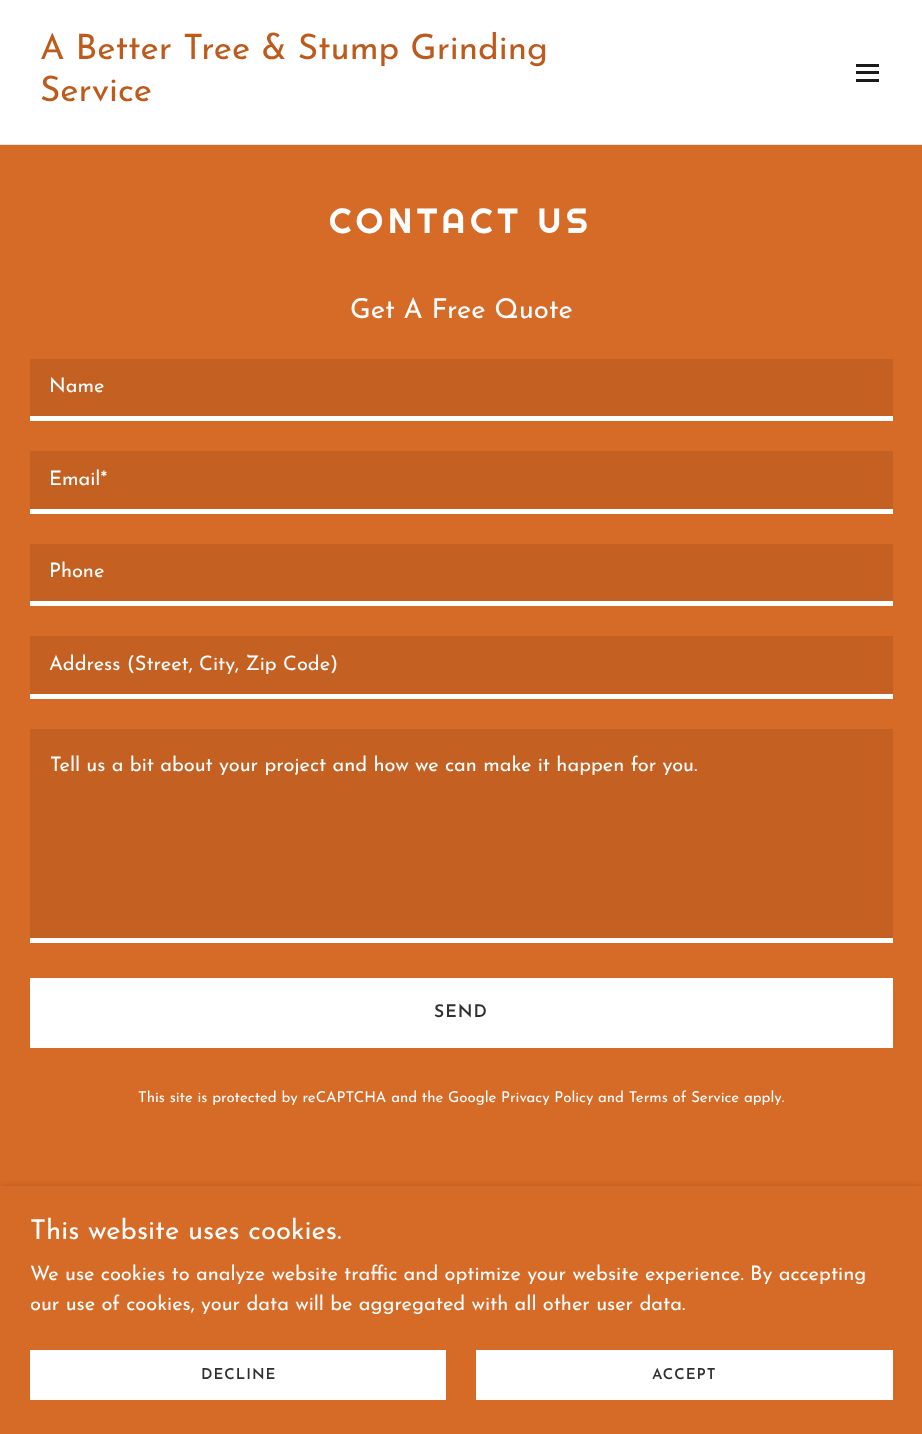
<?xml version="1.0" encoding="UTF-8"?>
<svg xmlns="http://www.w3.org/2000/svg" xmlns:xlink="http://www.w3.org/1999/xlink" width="922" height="1434">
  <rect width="100%" height="100%" fill="#d66a27" />
  <rect width="922" height="144" fill="#ffffff" />
  <rect x="856" y="64" width="23" height="3" fill="#1b1b1b" />
  <rect x="856" y="71" width="23" height="3" fill="#1b1b1b" />
  <rect x="856" y="79" width="23" height="3" fill="#1b1b1b" />
  <rect y="144" width="922" height="1" fill="#e2e2e2" />
  <rect x="30" y="359" width="863" height="57" fill="#c36022" />
  <rect x="30" y="416" width="863" height="5" fill="#ffffff" />
  <rect x="30" y="451" width="863" height="58" fill="#c36022" />
  <rect x="30" y="509" width="863" height="5" fill="#ffffff" />
  <rect x="30" y="544" width="863" height="57" fill="#c36022" />
  <rect x="30" y="601" width="863" height="5" fill="#ffffff" />
  <rect x="30" y="636" width="863" height="58" fill="#c36022" />
  <rect x="30" y="694" width="863" height="5" fill="#ffffff" />
  <rect x="30" y="729" width="863" height="209" fill="#c36022" />
  <rect x="30" y="938" width="863" height="5" fill="#ffffff" />
  <rect x="30" y="978" width="863" height="70" fill="#ffffff" />
  <rect y="1189" width="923" height="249" fill="#000000" fill-opacity="0.3" filter="blur(4px)" />
  <rect y="1186" width="922" height="248" fill="#d66a27" />
  <rect x="30" y="1350" width="416" height="50" fill="#ffffff" />
  <rect x="476" y="1350" width="417" height="50" fill="#ffffff" />
  <text x="40" y="59" style="font-family: Josefin Sans; font-size: 35px; fill: #bd5a1c">A Better Tree &amp; Stump Grinding</text>
  <text x="40" y="101" style="font-family: Josefin Sans; font-size: 35px; fill: #bd5a1c">Service</text>
  <text x="329" y="233" style="font-family: Righteous; font-size: 35px; letter-spacing: 5px; fill: #ffffff">CONTACT US</text>
  <text x="350" y="318" style="font-family: Josefin Sans; font-size: 27.5px; fill: #ffffff">Get A Free Quote</text>
  <text x="49" y="392" style="font-family: Josefin Sans; font-size: 20px; fill: #ffffff">Name</text>
  <text x="49" y="485" style="font-family: Josefin Sans; font-size: 20px; fill: #ffffff">Email*</text>
  <text x="49" y="577" style="font-family: Josefin Sans; font-size: 20px; fill: #ffffff">Phone</text>
  <text x="49" y="670" style="font-family: Josefin Sans; font-size: 20px; fill: #ffffff">Address (Street, City, Zip Code)</text>
  <text x="50" y="771" style="font-family: Josefin Sans; font-size: 20px; fill: #ffffff">Tell us a bit about your project and how we can make it happen for you.</text>
  <text x="434" y="1017" style="font-family: Josefin Sans; font-size: 17.5px; font-weight: 600; letter-spacing: 1px; fill: #303030">SEND</text>
  <text x="138" y="1102" style="font-family: Josefin Sans; font-size: 15px; fill: #ffffff">This site is protected by reCAPTCHA and the Google Privacy Policy and Terms of Service apply.</text>
  <text x="30" y="1239" style="font-family: Josefin Sans; font-size: 27.5px; fill: #ffffff">This website uses cookies.</text>
  <text x="30" y="1280" style="font-family: Josefin Sans; font-size: 20px; fill: #ffffff">We use cookies to analyze website traffic and optimize your website experience. By accepting</text>
  <text x="30" y="1310" style="font-family: Josefin Sans; font-size: 20px; fill: #ffffff">our use of cookies, your data will be aggregated with all other user data.</text>
  <text x="201" y="1379" style="font-family: Josefin Sans; font-size: 15px; font-weight: 600; letter-spacing: 1px; fill: #303030">DECLINE</text>
  <text x="652" y="1379" style="font-family: Josefin Sans; font-size: 15px; font-weight: 600; letter-spacing: 1px; fill: #303030">ACCEPT</text>
</svg>
